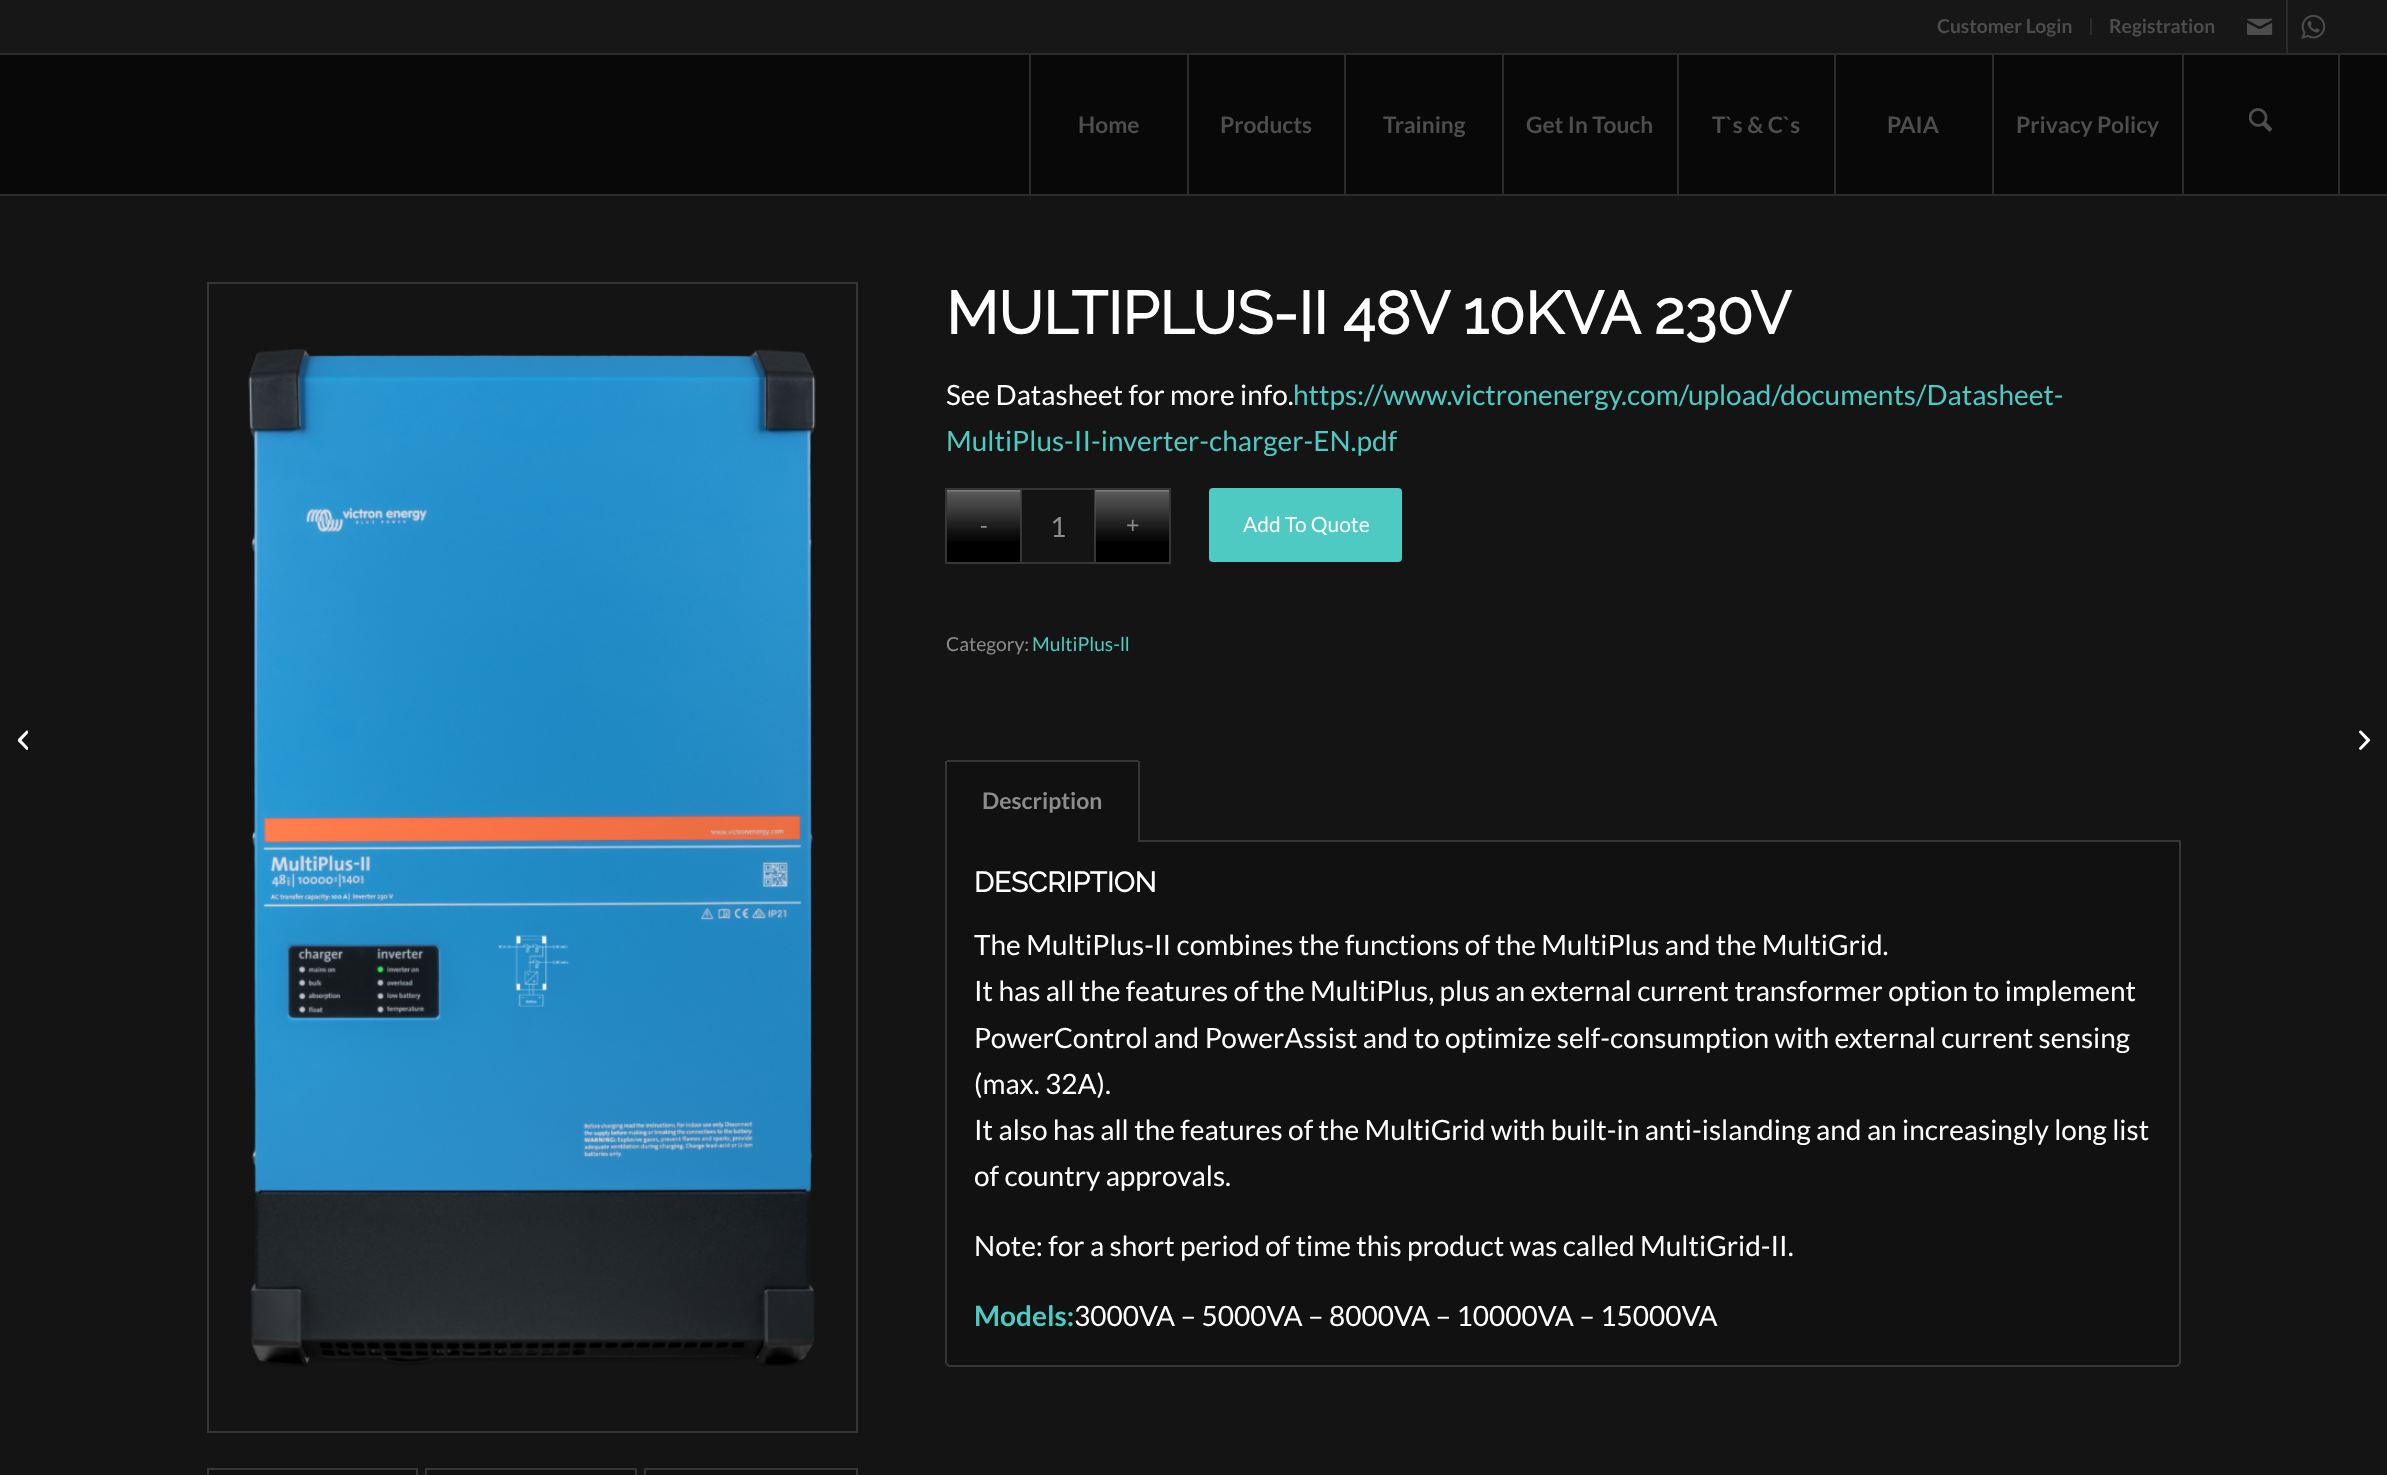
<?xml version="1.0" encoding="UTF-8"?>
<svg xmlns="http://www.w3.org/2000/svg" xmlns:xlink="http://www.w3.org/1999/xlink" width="2387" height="1475">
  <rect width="100%" height="100%" fill="#080808" />
  <rect width="2387" height="53" fill="#171717" />
  <rect x="1029" y="54" width="2" height="140" fill="#2b2b2b" />
  <rect x="1187" y="54" width="2" height="140" fill="#2b2b2b" />
  <rect x="1344" y="54" width="2" height="140" fill="#2b2b2b" />
  <rect x="1502" y="54" width="2" height="140" fill="#2b2b2b" />
  <rect x="1677" y="54" width="2" height="140" fill="#2b2b2b" />
  <rect x="1834" y="54" width="2" height="140" fill="#2b2b2b" />
  <rect x="1992" y="54" width="2" height="140" fill="#2b2b2b" />
  <rect x="2338" y="54" width="2" height="140" fill="#2b2b2b" />
  <rect x="2182" y="54" width="2" height="140" fill="#2b2b2b" />
  <rect y="53" width="2387" height="2" fill="#2b2b2b" />
  <rect x="2090" y="18" width="2" height="17" fill="#2b2b2b" />
  <rect x="2286" width="2" height="53" fill="#2b2b2b" />
  <image x="2247" y="18" width="26" height="17" xlink:href="image1.png" />
  <image x="2301" y="14" width="25" height="25" xlink:href="image2.png" />
  <rect y="194" width="2387" height="2" fill="#2b2b2b" />
  <image x="2249" y="108" width="23" height="24" xlink:href="image3.png" />
  <rect y="196" width="2387" height="1279" fill="#141414" />
  <image x="18" y="730" width="10" height="20" xlink:href="image4.png" />
  <rect x="208" y="283" width="649" height="1149" fill="none" stroke="#363636" stroke-width="2" />
  <image x="248" y="348" width="568" height="1019" xlink:href="image5.png" />
  <rect x="208" y="1469" width="209" height="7" fill="#111111" stroke="#363636" stroke-width="2" />
  <rect x="426" y="1469" width="210" height="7" fill="#111111" stroke="#363636" stroke-width="2" />
  <rect x="645" y="1469" width="212" height="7" fill="#111111" stroke="#363636" stroke-width="2" />
  <rect x="1021" y="489" width="74" height="74" fill="none" stroke="#363636" stroke-width="2" />
  <rect x="947" y="490" width="73" height="72" fill="#000000" />
  <image x="947" y="490" width="74" height="51" xlink:href="image6.png" />
  <rect x="1096" y="490" width="73" height="72" fill="#000000" />
  <image x="1095" y="490" width="74" height="51" xlink:href="image7.png" />
  <rect x="945" y="488" width="75" height="2" fill="#363636" />
  <rect x="945" y="562" width="75" height="2" fill="#363636" />
  <rect x="945" y="488" width="2" height="76" fill="#363636" />
  <rect x="1096" y="488" width="75" height="2" fill="#363636" />
  <rect x="1169" y="488" width="2" height="76" fill="#363636" />
  <rect x="1096" y="562" width="75" height="2" fill="#363636" />
  <rect x="1209" y="488" width="193" height="74" rx="4" fill="#4ecac2" />
  <path d="M 946 841 h 1234 v 521 c 0 2 -2 4 -4 4 h -1226 c -2 0 -4 -2 -4 -4 z" fill="#111111" stroke="#363636" stroke-width="2" />
  <rect x="945" y="760" width="194" height="82" fill="#111111" />
  <rect x="947" y="760" width="191" height="2" fill="#363636" />
  <rect x="1138" y="761" width="2" height="81" fill="#363636" />
  <rect x="945" y="761" width="2" height="81" fill="#363636" />
  <image x="2359" y="730" width="11" height="20" xlink:href="image8.png" />
  <text x="1937" y="33" style="font-family: Lato; font-size: 19.25px; font-weight: bold; fill: #4d4d4d">Customer Login</text>
  <text x="2109" y="33" style="font-family: Lato; font-size: 19.25px; font-weight: bold; fill: #4d4d4d">Registration</text>
  <text x="1078" y="133" style="font-family: Lato; font-size: 22.75px; font-weight: bold; fill: #4d4d4d">Home</text>
  <text x="1220" y="133" style="font-family: Lato; font-size: 22.75px; font-weight: bold; fill: #4d4d4d">Products</text>
  <text x="1383" y="133" style="font-family: Lato; font-size: 22.75px; font-weight: bold; fill: #4d4d4d">Training</text>
  <text x="1526" y="133" style="font-family: Lato; font-size: 22.75px; font-weight: bold; fill: #4d4d4d">Get In Touch</text>
  <text x="1712" y="133" style="font-family: Lato; font-size: 22.75px; font-weight: bold; fill: #4d4d4d">T`s &amp; C`s</text>
  <text x="1887" y="133" style="font-family: Lato; font-size: 22.75px; font-weight: bold; fill: #4d4d4d">PAIA</text>
  <text x="2016" y="133" style="font-family: Lato; font-size: 22.75px; font-weight: bold; fill: #4d4d4d">Privacy Policy</text>
  <text x="946" y="334" style="font-family: Raleway; font-size: 59.5px; font-weight: bold; fill: #ffffff">MULTIPLUS-II 48V 10KVA 230V</text>
  <text x="946" y="405" style="font-family: Lato; font-size: 28px; fill: #ffffff">See Datasheet for more info.</text>
  <text x="1293" y="405" style="font-family: Lato; font-size: 28px; fill: #4ecac2">https://www.victronenergy.com/upload/documents/Datasheet-</text>
  <text x="946" y="451" style="font-family: Lato; font-size: 28px; fill: #4ecac2">MultiPlus-II-inverter-charger-EN.pdf</text>
  <text x="1050" y="537" style="font-family: Lato; font-size: 28px; fill: #8c8c8c">1</text>
  <text x="980" y="533" style="font-family: Liberation Sans; font-size: 23px; fill: #8c8c8c">-</text>
  <text x="1126" y="533" style="font-family: Liberation Sans; font-size: 23px; fill: #8c8c8c">+</text>
  <text x="1243" y="532" style="font-family: Lato; font-size: 21px; fill: #ffffff">Add To Quote</text>
  <text x="946" y="651" style="font-family: Lato; font-size: 19.25px; fill: #8c8c8c">Category:</text>
  <text x="1032" y="651" style="font-family: Lato; font-size: 19.25px; fill: #4ecac2">MultiPlus-ll</text>
  <text x="982" y="809" style="font-family: Lato; font-size: 23px; font-weight: bold; fill: #8c8c8c">Description</text>
  <text x="974" y="892" style="font-family: Raleway; font-size: 28px; font-weight: bold; fill: #ffffff">DESCRIPTION</text>
  <text x="974" y="955" style="font-family: Lato; font-size: 28px; fill: #ffffff">The MultiPlus-II combines the functions of the MultiPlus and the MultiGrid.</text>
  <text x="974" y="1001" style="font-family: Lato; font-size: 28px; fill: #ffffff">It has all the features of the MultiPlus, plus an external current transformer option to implement</text>
  <text x="974" y="1048" style="font-family: Lato; font-size: 28px; fill: #ffffff">PowerControl and PowerAssist and to optimize self-consumption with external current sensing</text>
  <text x="974" y="1094" style="font-family: Lato; font-size: 28px; fill: #ffffff">(max. 32A).</text>
  <text x="974" y="1140" style="font-family: Lato; font-size: 28px; fill: #ffffff">It also has all the features of the MultiGrid with built-in anti-islanding and an increasingly long list</text>
  <text x="974" y="1186" style="font-family: Lato; font-size: 28px; fill: #ffffff">of country approvals.</text>
  <text x="974" y="1256" style="font-family: Lato; font-size: 28px; fill: #ffffff">Note: for a short period of time this product was called MultiGrid-II.</text>
  <text x="974" y="1326" style="font-family: Lato; font-size: 28px; font-weight: bold; fill: #4ecac2">Models:</text>
  <text x="1074" y="1326" style="font-family: Lato; font-size: 28px; fill: #ffffff">3000VA – 5000VA – 8000VA – 10000VA – 15000VA</text>
</svg>
